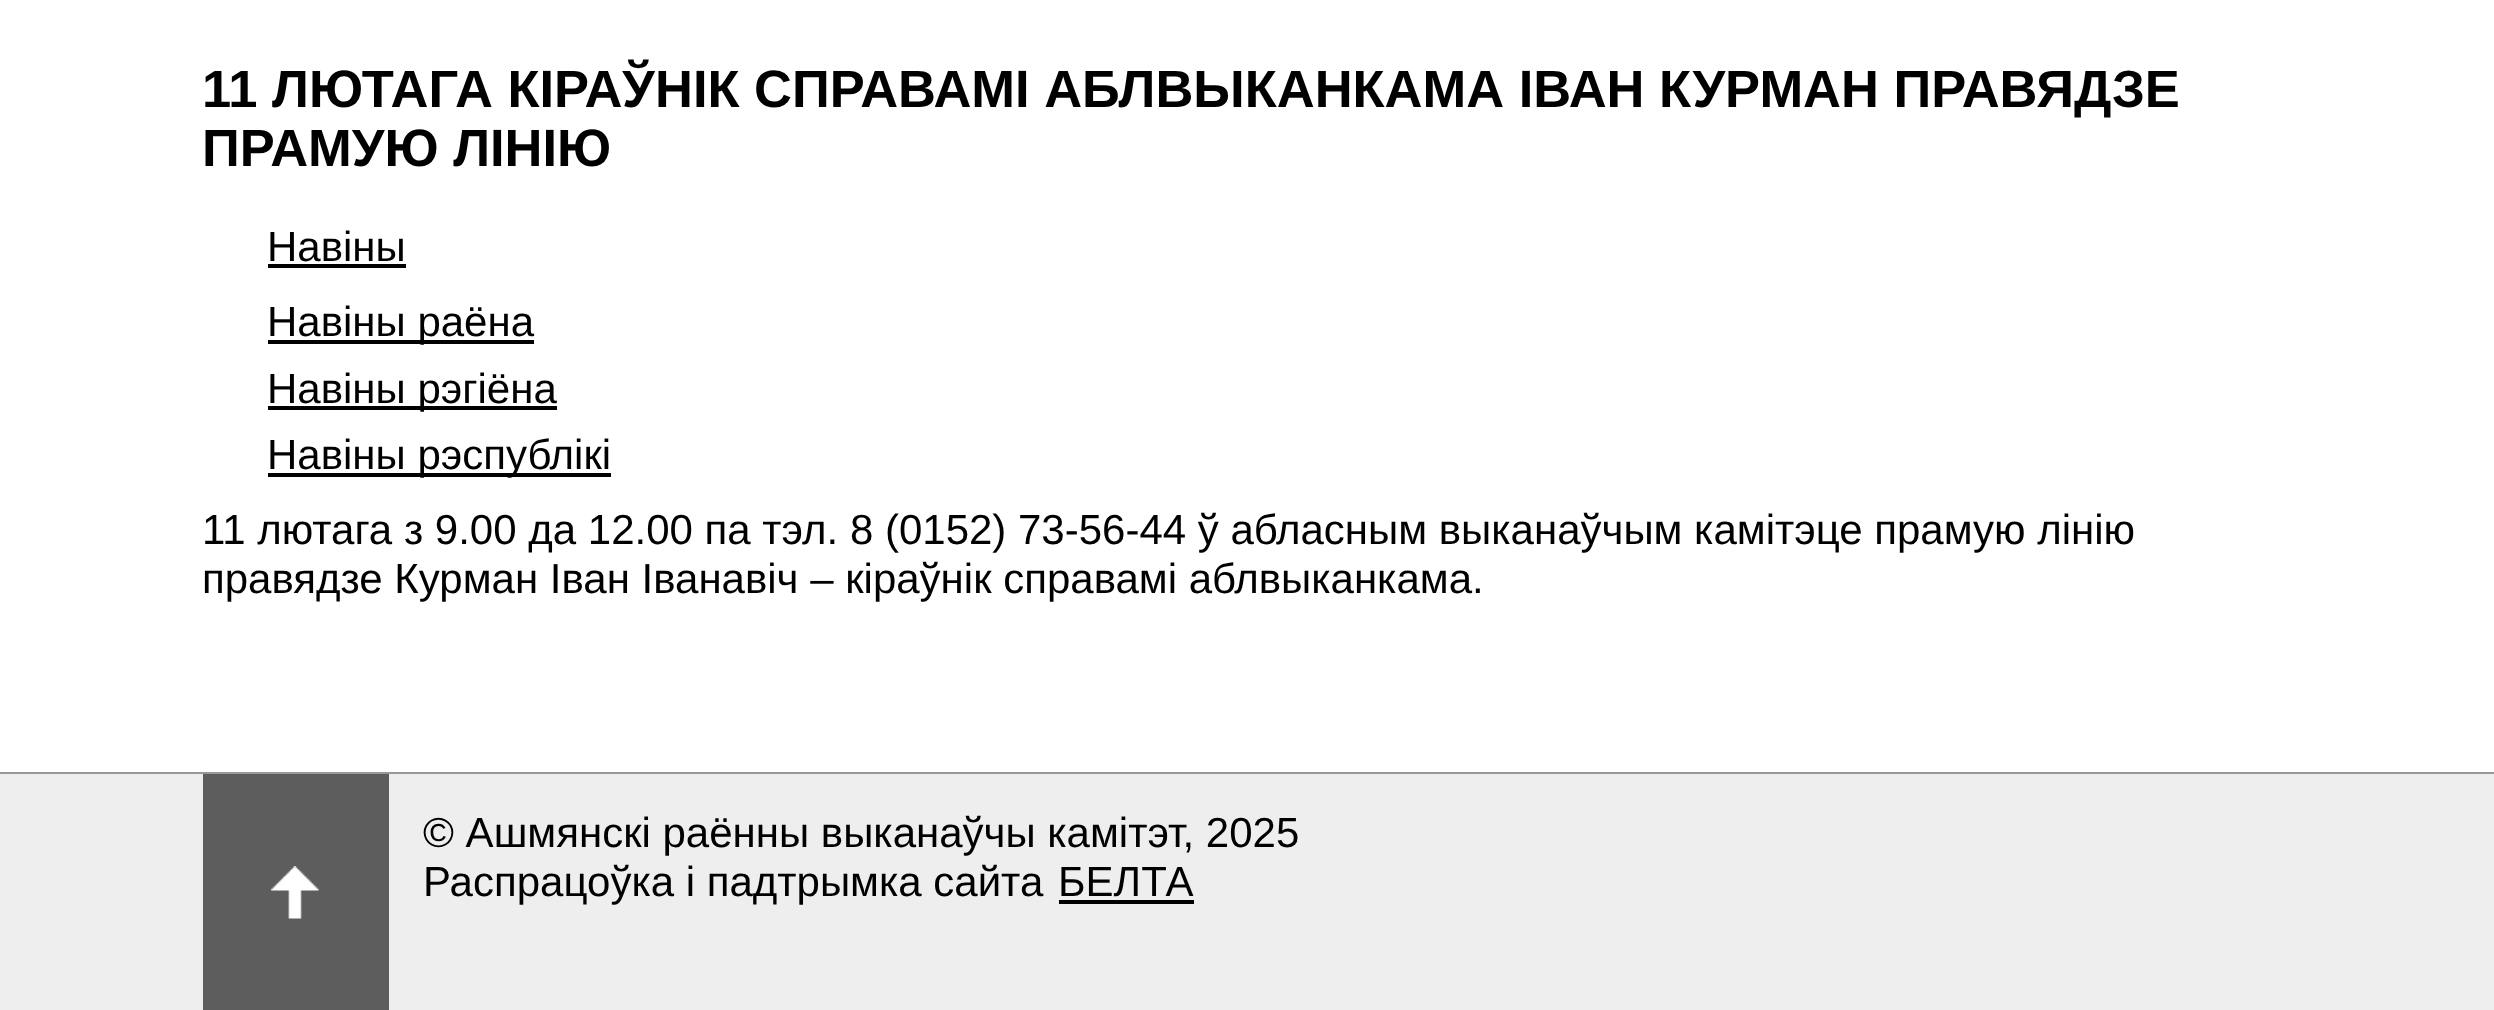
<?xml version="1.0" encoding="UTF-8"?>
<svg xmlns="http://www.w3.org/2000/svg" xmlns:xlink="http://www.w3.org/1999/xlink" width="2494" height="1010">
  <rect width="100%" height="100%" fill="#ffffff" />
  <rect x="268" y="264" width="138" height="4" fill="#000000" />
  <rect x="268" y="340" width="266" height="4" fill="#000000" />
  <rect x="268" y="406" width="289" height="4" fill="#000000" />
  <rect x="268" y="473" width="343" height="4" fill="#000000" />
  <rect y="774" width="2494" height="236" fill="#eeeeee" />
  <rect y="772" width="2494" height="2" fill="#999999" />
  <rect x="203" y="774" width="186" height="236" fill="#5d5d5d" />
  <image x="271" y="866" width="48" height="53" xlink:href="image1.png" />
  <rect x="1059" y="900" width="135" height="4" fill="#000000" />
  <text x="202" y="107" style="font-family: Liberation Sans; font-size: 52.5px; font-weight: bold; fill: #000000">11 ЛЮТАГА КІРАЎНІК СПРАВАМІ АБЛВЫКАНКАМА ІВАН КУРМАН ПРАВЯДЗЕ</text>
  <text x="202" y="166" style="font-family: Liberation Sans; font-size: 52.5px; font-weight: bold; fill: #000000">ПРАМУЮ ЛІНІЮ</text>
  <text x="267" y="261" style="font-family: Liberation Sans; font-size: 42px; fill: #000000">Навiны</text>
  <text x="267" y="336" style="font-family: Liberation Sans; font-size: 42px; fill: #000000">Навiны раёна</text>
  <text x="267" y="403" style="font-family: Liberation Sans; font-size: 42px; fill: #000000">Навiны рэгiёна</text>
  <text x="267" y="469" style="font-family: Liberation Sans; font-size: 42px; fill: #000000">Навiны рэспублiкi</text>
  <text x="202" y="544" style="font-family: Liberation Sans; font-size: 42px; fill: #000000">11 лютага з 9.00 да 12.00 па тэл. 8 (0152) 73-56-44 ў абласным выканаўчым камітэце прамую лінію</text>
  <text x="202" y="593" style="font-family: Liberation Sans; font-size: 42px; fill: #000000">правядзе Курман Іван Іванавіч – кіраўнік справамі аблвыканкама.</text>
  <text x="423" y="847" style="font-family: Liberation Sans; font-size: 42px; fill: #000000">© Ашмянскi раённы выканаўчы камітэт, 2025</text>
  <text x="423" y="896" style="font-family: Liberation Sans; font-size: 42px; fill: #000000">Распрацоўка і падтрымка сайта</text>
  <text x="1058" y="896" style="font-family: Liberation Sans; font-size: 42px; fill: #000000">БЕЛТА</text>
</svg>
